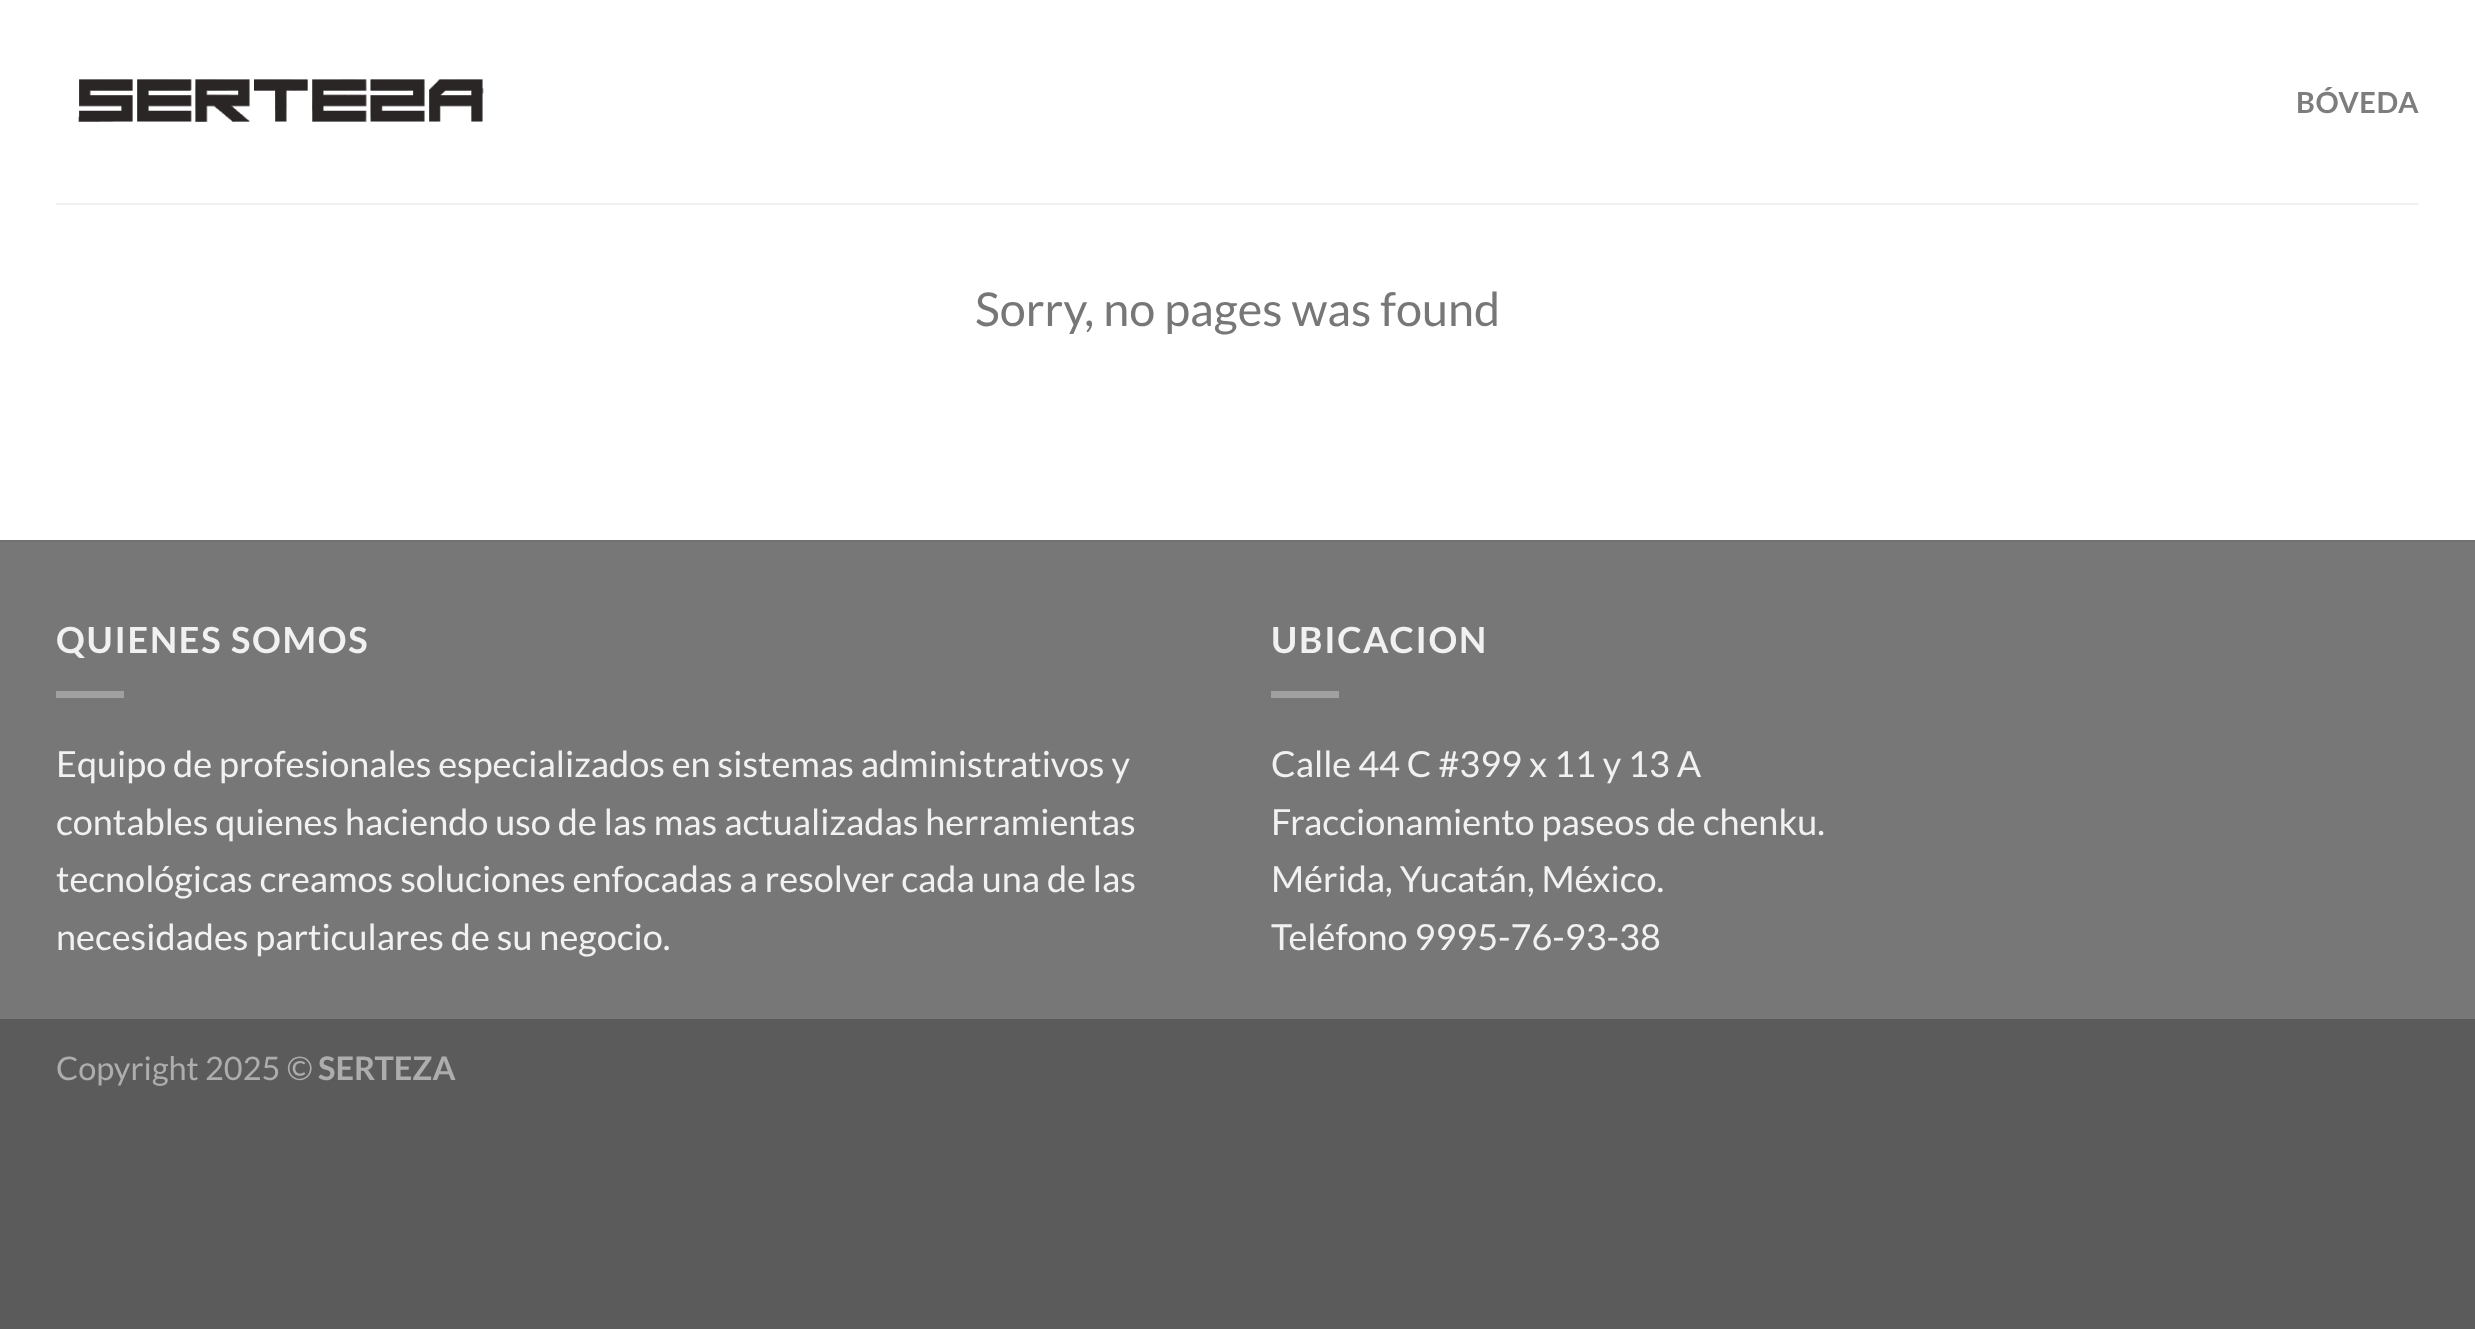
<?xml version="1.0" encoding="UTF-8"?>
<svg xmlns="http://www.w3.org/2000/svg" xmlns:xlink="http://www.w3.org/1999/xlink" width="2475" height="1329">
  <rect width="100%" height="100%" fill="#5b5b5b" />
  <rect width="2475" height="540" fill="#ffffff" />
  <image x="78" y="79" width="406" height="43" xlink:href="image1.png" />
  <rect x="56" y="203" width="2363" height="2" fill="#f1f1f1" />
  <rect y="542" width="2475" height="477" fill="#777777" />
  <rect y="540" width="2475" height="2" fill="#717171" />
  <rect x="56" y="691" width="68" height="7" fill="#a0a0a0" />
  <rect x="1271" y="691" width="68" height="7" fill="#a0a0a0" />
  <text x="2296" y="113" style="font-family: Lato; font-size: 29px; font-weight: bold; letter-spacing: 0.5px; fill: #7d7d7d">BÓVEDA</text>
  <text x="975" y="326" style="font-family: Lato; font-size: 46.75px; fill: #777777">Sorry, no pages was found</text>
  <text x="56" y="653" style="font-family: Lato; font-size: 36px; font-weight: bold; letter-spacing: 1.75px; fill: #f1f1f1">QUIENES SOMOS</text>
  <text x="56" y="777" style="font-family: Lato; font-size: 36px; fill: #f1f1f1">Equipo de profesionales especializados en sistemas administrativos y</text>
  <text x="56" y="835" style="font-family: Lato; font-size: 36px; fill: #f1f1f1">contables quienes haciendo uso de las mas actualizadas herramientas</text>
  <text x="56" y="892" style="font-family: Lato; font-size: 36px; fill: #f1f1f1">tecnológicas creamos soluciones enfocadas a resolver cada una de las</text>
  <text x="56" y="950" style="font-family: Lato; font-size: 36px; fill: #f1f1f1">necesidades particulares de su negocio.</text>
  <text x="1271" y="653" style="font-family: Lato; font-size: 36px; font-weight: bold; letter-spacing: 1.75px; fill: #f1f1f1">UBICACION</text>
  <text x="1271" y="777" style="font-family: Lato; font-size: 36px; fill: #f1f1f1">Calle 44 C #399 x 11 y 13 A</text>
  <text x="1271" y="835" style="font-family: Lato; font-size: 36px; fill: #f1f1f1">Fraccionamiento paseos de chenku.</text>
  <text x="1271" y="892" style="font-family: Lato; font-size: 36px; fill: #f1f1f1">Mérida, Yucatán, México.</text>
  <text x="1271" y="950" style="font-family: Lato; font-size: 36px; fill: #f1f1f1">Teléfono 9995-76-93-38</text>
  <text x="56" y="1080" style="font-family: Lato; font-size: 32.5px; fill: #adadad">Copyright 2025 ©</text>
  <text x="318" y="1080" style="font-family: Lato; font-size: 32.5px; font-weight: bold; fill: #adadad">SERTEZA</text>
</svg>
